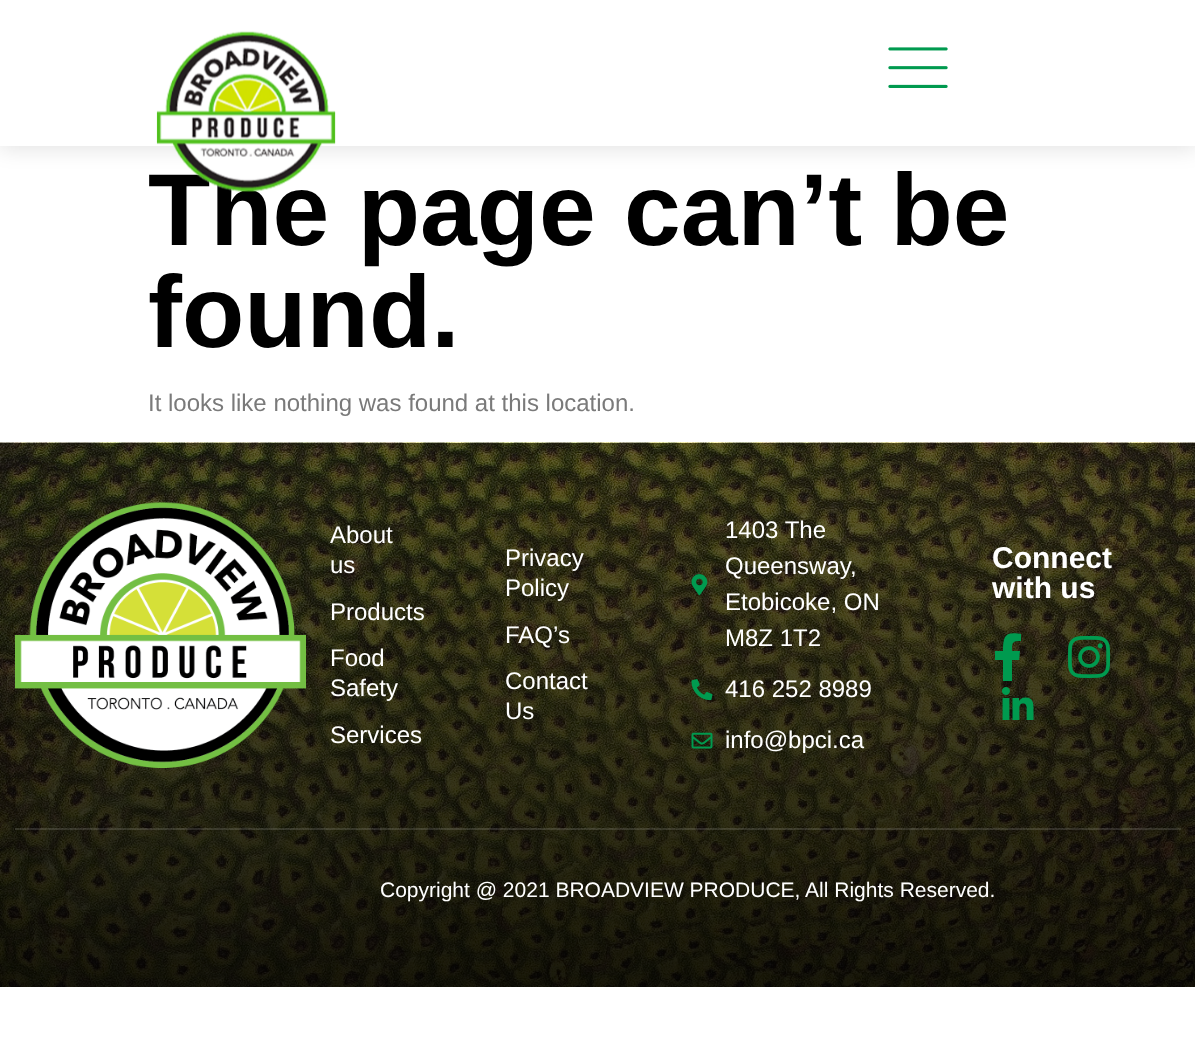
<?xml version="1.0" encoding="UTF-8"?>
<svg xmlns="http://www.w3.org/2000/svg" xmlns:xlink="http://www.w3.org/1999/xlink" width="1195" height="1042">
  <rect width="100%" height="100%" fill="#ffffff" />
  <rect y="5" width="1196" height="145" fill="#000000" fill-opacity="0.1" filter="blur(10px)" />
  <rect width="1195" height="146" fill="#ffffff" />
  <image x="888" y="47" width="60" height="41" xlink:href="image2.png" />
  <image x="0" y="442" width="1195" height="545" xlink:href="image3.png" />
  <image x="15" y="502" width="291" height="266" xlink:href="image4.png" />
  <image x="691" y="574" width="17" height="22" xlink:href="image5.png" />
  <image x="691" y="679" width="22" height="22" xlink:href="image6.png" />
  <image x="691" y="732" width="22" height="17" xlink:href="image7.png" />
  <path d="M 1019 660 h -7 v 21 h -9 v -21 h -8 v -9 h 8 c 0 -15 2 -20 18 -17 v 7 c -9 0 -9 2 -9 10 h 8 z" fill="#009a4f" />
  <image x="1068" y="635" width="43" height="43" xlink:href="image8.png" />
  <image x="1002" y="687" width="32" height="33" xlink:href="image9.png" />
  <rect x="15" y="828" width="1166" height="2" fill="#f8f8f8" fill-opacity="0.13" />
  <text x="148" y="245" style="font-family: Liberation Sans; font-size: 102px; font-weight: bold; fill: #000000">The page can’t be</text>
  <image x="156" y="31" width="180" height="161" xlink:href="image1.png" />
  <text x="148" y="347" style="font-family: Liberation Sans; font-size: 102px; font-weight: bold; fill: #000000">found.</text>
  <text x="148" y="411" style="font-family: Liberation Sans; font-size: 24px; fill: #7a7a7a">It looks like nothing was found at this location.</text>
  <text x="330" y="543" style="font-family: Liberation Sans; font-size: 24px; fill: #ffffff">About</text>
  <text x="330" y="573" style="font-family: Liberation Sans; font-size: 24px; fill: #ffffff">us</text>
  <text x="330" y="620" style="font-family: Liberation Sans; font-size: 24px; fill: #ffffff">Products</text>
  <text x="330" y="666" style="font-family: Liberation Sans; font-size: 24px; fill: #ffffff">Food</text>
  <text x="330" y="696" style="font-family: Liberation Sans; font-size: 24px; fill: #ffffff">Safety</text>
  <text x="330" y="743" style="font-family: Liberation Sans; font-size: 24px; fill: #ffffff">Services</text>
  <text x="505" y="566" style="font-family: Liberation Sans; font-size: 24px; fill: #ffffff">Privacy</text>
  <text x="505" y="596" style="font-family: Liberation Sans; font-size: 24px; fill: #ffffff">Policy</text>
  <text x="505" y="643" style="font-family: Liberation Sans; font-size: 24px; fill: #ffffff">FAQ’s</text>
  <text x="505" y="689" style="font-family: Liberation Sans; font-size: 24px; fill: #ffffff">Contact</text>
  <text x="505" y="719" style="font-family: Liberation Sans; font-size: 24px; fill: #ffffff">Us</text>
  <text x="725" y="538" style="font-family: Liberation Sans; font-size: 24px; fill: #ffffff">1403 The</text>
  <text x="725" y="574" style="font-family: Liberation Sans; font-size: 24px; fill: #ffffff">Queensway,</text>
  <text x="725" y="610" style="font-family: Liberation Sans; font-size: 24px; fill: #ffffff">Etobicoke, ON</text>
  <text x="725" y="646" style="font-family: Liberation Sans; font-size: 24px; fill: #ffffff">M8Z 1T2</text>
  <text x="725" y="697" style="font-family: Liberation Sans; font-size: 24px; fill: #ffffff">416 252 8989</text>
  <text x="725" y="748" style="font-family: Liberation Sans; font-size: 24px; fill: #ffffff">info@bpci.ca</text>
  <text x="992" y="568" style="font-family: Liberation Sans; font-size: 30px; font-weight: bold; fill: #ffffff">Connect</text>
  <text x="992" y="598" style="font-family: Liberation Sans; font-size: 30px; font-weight: bold; fill: #ffffff">with us</text>
  <text x="380" y="897" style="font-family: Liberation Sans; font-size: 21px; fill: #ffffff">Copyright @ 2021 BROADVIEW PRODUCE, All Rights Reserved.</text>
</svg>
